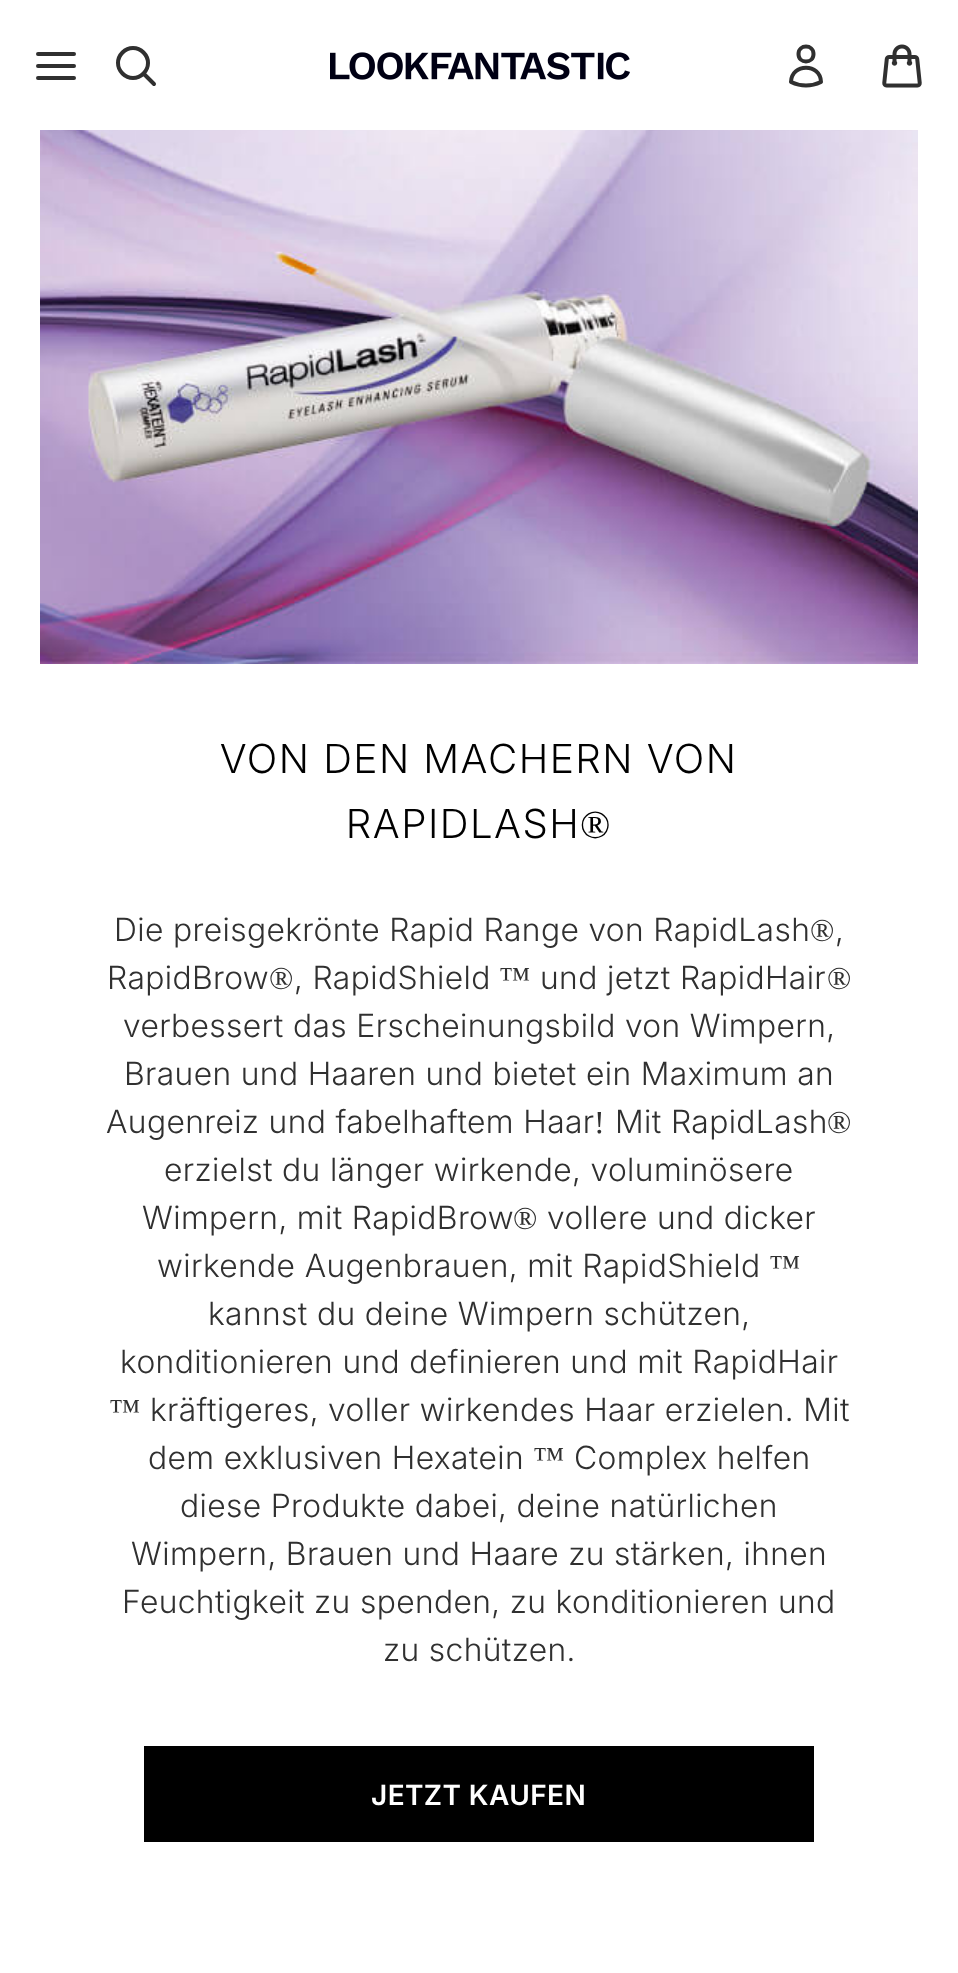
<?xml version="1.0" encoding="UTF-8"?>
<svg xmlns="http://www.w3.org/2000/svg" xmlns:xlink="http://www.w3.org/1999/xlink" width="958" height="1973">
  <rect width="100%" height="100%" fill="#ffffff" />
  <path d="M 38 66 h 36 m -36 -12 h 36 m -36 24 h 36" fill="none" stroke="#303030" stroke-width="4" stroke-linecap="round" stroke-linejoin="round" />
  <path d="M 154 84 l -10.5 -10.5 m 0 0 c 6 -6 6 -15 0 -21 c -6 -6 -15 -6 -21 0 c -6 6 -6 15 0 21 c 6 6 15 6 21 0 z" fill="none" stroke="#303030" stroke-width="4" stroke-linecap="round" stroke-linejoin="round" />
  <image x="330" y="52" width="300" height="28" xlink:href="image1.png" />
  <path d="M 813.5 54 c 0 10 -15 10 -15 0 c 0 -10 15 -10 15 0 z m -22.5 28 c 0.5 -19 29.5 -19 30 0 c -9.5 4.5 -20.5 4.5 -30 0 z" fill="none" stroke="#303030" stroke-width="4" stroke-linecap="round" stroke-linejoin="round" />
  <image x="882" y="44" width="40" height="44" xlink:href="image2.png" />
  <image x="40" y="130" width="878" height="534" xlink:href="image3.png" />
  <rect x="144" y="1746" width="670" height="96" fill="#000000" />
  <text x="220" y="773" style="font-family: Inter; font-size: 40px; font-weight: 300; letter-spacing: 2px; fill: #000000">VON DEN MACHERN VON</text>
  <text x="346" y="838" style="font-family: Inter; font-size: 40px; font-weight: 300; letter-spacing: 2px; fill: #000000">RAPIDLASH</text>
  <text x="580" y="838" style="font-family: Liberation Serif; font-size: 40px; letter-spacing: 2px; fill: #000000">®</text>
  <text x="114" y="941" style="font-family: 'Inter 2'; font-size: 32px; font-weight: 300; letter-spacing: 0.4px; fill: #303030">Die preisgekrönte Rapid Range von RapidLash</text>
  <text x="810" y="941" style="font-family: Liberation Serif; font-size: 32px; letter-spacing: 0.4px; fill: #303030">®</text>
  <text x="835" y="941" style="font-family: 'Inter 2'; font-size: 32px; font-weight: 300; letter-spacing: 0.4px; fill: #303030">,</text>
  <text x="107" y="989" style="font-family: 'Inter 2'; font-size: 32px; font-weight: 300; letter-spacing: 0.4px; fill: #303030">RapidBrow</text>
  <text x="269" y="989" style="font-family: Liberation Serif; font-size: 32px; letter-spacing: 0.4px; fill: #303030">®</text>
  <text x="294" y="989" style="font-family: 'Inter 2'; font-size: 32px; font-weight: 300; letter-spacing: 0.4px; fill: #303030">, RapidShield</text>
  <text x="499" y="989" style="font-family: Liberation Serif; font-size: 32px; letter-spacing: 0.4px; fill: #303030">™</text>
  <text x="540" y="989" style="font-family: 'Inter 2'; font-size: 32px; font-weight: 300; letter-spacing: 0.4px; fill: #303030">und jetzt RapidHair</text>
  <text x="827" y="989" style="font-family: Liberation Serif; font-size: 32px; letter-spacing: 0.4px; fill: #303030">®</text>
  <text x="123" y="1037" style="font-family: 'Inter 2'; font-size: 32px; font-weight: 300; letter-spacing: 0.4px; fill: #303030">verbessert das Erscheinungsbild von Wimpern,</text>
  <text x="124" y="1085" style="font-family: 'Inter 2'; font-size: 32px; font-weight: 300; letter-spacing: 0.4px; fill: #303030">Brauen und Haaren und bietet ein Maximum an</text>
  <text x="106" y="1133" style="font-family: 'Inter 2'; font-size: 32px; font-weight: 300; letter-spacing: 0.4px; fill: #303030">Augenreiz und fabelhaftem Haar</text>
  <text x="594" y="1133" style="font-family: Liberation Serif; font-size: 32px; letter-spacing: 0.4px; fill: #303030">!</text>
  <text x="615" y="1133" style="font-family: 'Inter 2'; font-size: 32px; font-weight: 300; letter-spacing: 0.4px; fill: #303030">Mit RapidLash</text>
  <text x="827" y="1133" style="font-family: Liberation Serif; font-size: 32px; letter-spacing: 0.4px; fill: #303030">®</text>
  <text x="164" y="1181" style="font-family: 'Inter 2'; font-size: 32px; font-weight: 300; letter-spacing: 0.4px; fill: #303030">erzielst du länger wirkende, voluminösere</text>
  <text x="142" y="1229" style="font-family: 'Inter 2'; font-size: 32px; font-weight: 300; letter-spacing: 0.4px; fill: #303030">Wimpern, mit RapidBrow</text>
  <text x="513" y="1229" style="font-family: Liberation Serif; font-size: 32px; letter-spacing: 0.4px; fill: #303030">®</text>
  <text x="547" y="1229" style="font-family: 'Inter 2'; font-size: 32px; font-weight: 300; letter-spacing: 0.4px; fill: #303030">vollere und dicker</text>
  <text x="157" y="1277" style="font-family: 'Inter 2'; font-size: 32px; font-weight: 300; letter-spacing: 0.4px; fill: #303030">wirkende Augenbrauen, mit RapidShield</text>
  <text x="769" y="1277" style="font-family: Liberation Serif; font-size: 32px; letter-spacing: 0.4px; fill: #303030">™</text>
  <text x="208" y="1325" style="font-family: 'Inter 2'; font-size: 32px; font-weight: 300; letter-spacing: 0.4px; fill: #303030">kannst du deine Wimpern schützen,</text>
  <text x="120" y="1373" style="font-family: 'Inter 2'; font-size: 32px; font-weight: 300; letter-spacing: 0.4px; fill: #303030">konditionieren und definieren und mit RapidHair</text>
  <text x="109" y="1421" style="font-family: Liberation Serif; font-size: 32px; letter-spacing: 0.4px; fill: #303030">™</text>
  <text x="150" y="1421" style="font-family: 'Inter 2'; font-size: 32px; font-weight: 300; letter-spacing: 0.4px; fill: #303030">kräftigeres, voller wirkendes Haar erzielen. Mit</text>
  <text x="148" y="1469" style="font-family: 'Inter 2'; font-size: 32px; font-weight: 300; letter-spacing: 0.4px; fill: #303030">dem exklusiven Hexatein</text>
  <text x="533" y="1469" style="font-family: Liberation Serif; font-size: 32px; letter-spacing: 0.4px; fill: #303030">™</text>
  <text x="574" y="1469" style="font-family: 'Inter 2'; font-size: 32px; font-weight: 300; letter-spacing: 0.4px; fill: #303030">Complex helfen</text>
  <text x="180" y="1517" style="font-family: 'Inter 2'; font-size: 32px; font-weight: 300; letter-spacing: 0.4px; fill: #303030">diese Produkte dabei, deine natürlichen</text>
  <text x="131" y="1565" style="font-family: 'Inter 2'; font-size: 32px; font-weight: 300; letter-spacing: 0.4px; fill: #303030">Wimpern, Brauen und Haare zu stärken, ihnen</text>
  <text x="122" y="1613" style="font-family: 'Inter 2'; font-size: 32px; font-weight: 300; letter-spacing: 0.4px; fill: #303030">Feuchtigkeit zu spenden, zu konditionieren und</text>
  <text x="383" y="1661" style="font-family: 'Inter 2'; font-size: 32px; font-weight: 300; letter-spacing: 0.4px; fill: #303030">zu schützen.</text>
  <text x="371" y="1805" style="font-family: Inter; font-size: 28px; font-weight: 600; letter-spacing: 0.4px; fill: #ffffff">JETZT KAUFEN</text>
</svg>
